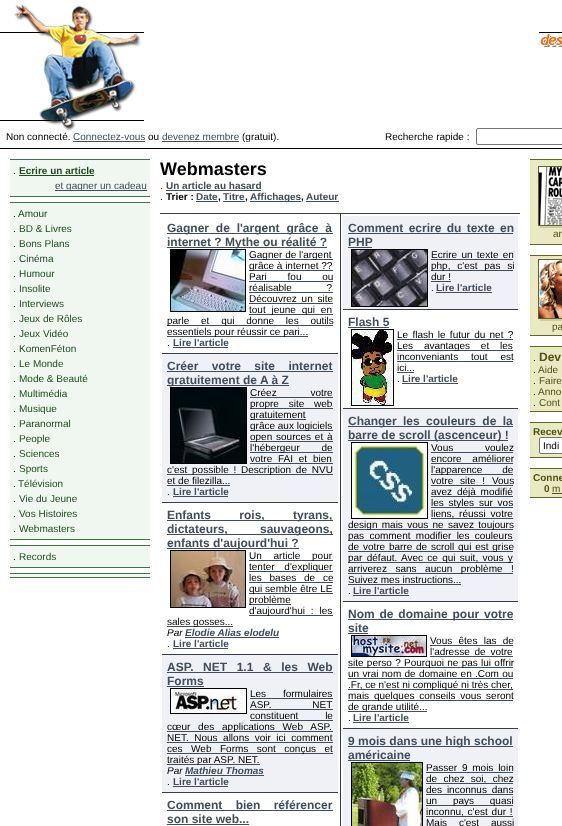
<?xml version="1.0" encoding="UTF-8"?>
<svg xmlns="http://www.w3.org/2000/svg" xmlns:xlink="http://www.w3.org/1999/xlink" width="562" height="826">
  <rect width="100%" height="100%" fill="#ffffff" />
  <image x="0" y="0" width="144" height="131" xlink:href="image1.png" />
  <image x="539" y="32" width="23" height="15" xlink:href="image2.png" />
  <rect x="73" y="141" width="72" height="1" fill="#3f4d5c" />
  <rect x="162" y="141" width="77" height="1" fill="#3f4d5c" />
  <rect x="476.5" y="128.5" width="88" height="16" rx="1.5" fill="none" stroke="#767676" />
  <rect y="148" width="562" height="1" fill="#000000" />
  <rect x="10" y="159" width="140" height="1" fill="#407340" />
  <rect x="10" y="160" width="140" height="36" fill="#f0f6f0" />
  <rect x="19" y="175" width="75" height="1" fill="#1b501b" />
  <rect x="55" y="190" width="92" height="1" fill="#3f4d5c" />
  <rect x="10" y="196" width="140" height="1" fill="#407340" />
  <rect x="10" y="202" width="140" height="1" fill="#407340" />
  <rect x="10" y="203" width="140" height="336" fill="#f0f6f0" />
  <rect x="10" y="539" width="140" height="1" fill="#407340" />
  <rect x="10" y="545" width="140" height="1" fill="#407340" />
  <rect x="10" y="546" width="140" height="21" fill="#f0f6f0" />
  <rect x="10" y="567" width="140" height="1" fill="#407340" />
  <rect x="10" y="573" width="140" height="1" fill="#407340" />
  <rect x="10" y="574" width="140" height="3" fill="#f0f6f0" />
  <rect x="10" y="577" width="140" height="1" fill="#407340" />
  <rect x="166" y="190" width="95" height="1" fill="#3f4d5c" />
  <rect x="196" y="201" width="22" height="1" fill="#3f4d5c" />
  <rect x="223" y="201" width="22" height="1" fill="#3f4d5c" />
  <rect x="250" y="201" width="51" height="1" fill="#3f4d5c" />
  <rect x="306" y="201" width="33" height="1" fill="#3f4d5c" />
  <rect x="160" y="213" width="360" height="1" fill="#373c4f" />
  <rect x="167" y="233" width="166" height="1" fill="#3f4d5c" />
  <rect x="167" y="247" width="160" height="1" fill="#3f4d5c" />
  <rect x="170.5" y="249.5" width="75" height="62" fill="none" stroke="#000000" />
  <image x="171" y="250" width="74" height="61" xlink:href="image3.png" />
  <rect x="249" y="259" width="84" height="1" fill="#3f4d5c" />
  <rect x="249" y="270" width="84" height="1" fill="#3f4d5c" />
  <rect x="249" y="281" width="84" height="1" fill="#3f4d5c" />
  <rect x="249" y="292" width="84" height="1" fill="#3f4d5c" />
  <rect x="249" y="303" width="84" height="1" fill="#3f4d5c" />
  <rect x="249" y="314" width="84" height="1" fill="#3f4d5c" />
  <rect x="167" y="325" width="166" height="1" fill="#3f4d5c" />
  <rect x="167" y="336" width="141" height="1" fill="#3f4d5c" />
  <rect x="173" y="347" width="55" height="1" fill="#3f4d5c" />
  <rect x="162" y="353" width="176" height="1" fill="#373c4f" />
  <rect x="162" y="354" width="176" height="148" fill="#f0f1f6" />
  <rect x="167" y="371" width="166" height="1" fill="#3f4d5c" />
  <rect x="167" y="385" width="122" height="1" fill="#3f4d5c" />
  <rect x="170.5" y="387.5" width="76" height="76" fill="none" stroke="#000000" />
  <image x="171" y="388" width="75" height="75" xlink:href="image4.png" />
  <rect x="250" y="397" width="83" height="1" fill="#3f4d5c" />
  <rect x="250" y="408" width="83" height="1" fill="#3f4d5c" />
  <rect x="250" y="419" width="56" height="1" fill="#3f4d5c" />
  <rect x="250" y="430" width="83" height="1" fill="#3f4d5c" />
  <rect x="250" y="441" width="83" height="1" fill="#3f4d5c" />
  <rect x="250" y="452" width="83" height="1" fill="#3f4d5c" />
  <rect x="250" y="463" width="83" height="1" fill="#3f4d5c" />
  <rect x="167" y="474" width="166" height="1" fill="#3f4d5c" />
  <rect x="167" y="485" width="63" height="1" fill="#3f4d5c" />
  <rect x="173" y="496" width="55" height="1" fill="#3f4d5c" />
  <rect x="162" y="502" width="176" height="1" fill="#373c4f" />
  <rect x="167" y="520" width="166" height="1" fill="#3f4d5c" />
  <rect x="167" y="534" width="166" height="1" fill="#3f4d5c" />
  <rect x="167" y="548" width="132" height="1" fill="#3f4d5c" />
  <rect x="170.5" y="550.5" width="75" height="57" fill="none" stroke="#000000" />
  <image x="171" y="551" width="74" height="56" xlink:href="image5.png" />
  <rect x="249" y="560" width="84" height="1" fill="#3f4d5c" />
  <rect x="249" y="571" width="84" height="1" fill="#3f4d5c" />
  <rect x="249" y="582" width="84" height="1" fill="#3f4d5c" />
  <rect x="249" y="593" width="84" height="1" fill="#3f4d5c" />
  <rect x="249" y="604" width="42" height="1" fill="#3f4d5c" />
  <rect x="249" y="615" width="84" height="1" fill="#3f4d5c" />
  <rect x="167" y="626" width="66" height="1" fill="#3f4d5c" />
  <rect x="185" y="637" width="94" height="1" fill="#3f4d5c" />
  <rect x="173" y="648" width="55" height="1" fill="#3f4d5c" />
  <rect x="162" y="654" width="176" height="1" fill="#373c4f" />
  <rect x="162" y="655" width="176" height="137" fill="#f0f1f6" />
  <rect x="167" y="672" width="166" height="1" fill="#3f4d5c" />
  <rect x="167" y="686" width="37" height="1" fill="#3f4d5c" />
  <rect x="170.5" y="688.5" width="76" height="25" fill="none" stroke="#000000" />
  <image x="171" y="689" width="75" height="24" xlink:href="image6.png" />
  <rect x="250" y="698" width="83" height="1" fill="#3f4d5c" />
  <rect x="250" y="709" width="83" height="1" fill="#3f4d5c" />
  <rect x="250" y="720" width="83" height="1" fill="#3f4d5c" />
  <rect x="167" y="731" width="166" height="1" fill="#3f4d5c" />
  <rect x="167" y="742" width="166" height="1" fill="#3f4d5c" />
  <rect x="167" y="753" width="166" height="1" fill="#3f4d5c" />
  <rect x="167" y="764" width="93" height="1" fill="#3f4d5c" />
  <rect x="185" y="775" width="79" height="1" fill="#3f4d5c" />
  <rect x="173" y="786" width="55" height="1" fill="#3f4d5c" />
  <rect x="162" y="792" width="176" height="1" fill="#373c4f" />
  <rect x="167" y="810" width="166" height="1" fill="#3f4d5c" />
  <rect x="167" y="824" width="82" height="1" fill="#3f4d5c" />
  <rect x="340" y="214" width="1" height="612" fill="#373c4f" />
  <rect x="343" y="216" width="175" height="93" fill="#f0f1f6" />
  <rect x="348" y="233" width="165" height="1" fill="#3f4d5c" />
  <rect x="348" y="247" width="24" height="1" fill="#3f4d5c" />
  <rect x="351.5" y="249.5" width="76" height="57" fill="none" stroke="#000000" />
  <image x="352" y="250" width="75" height="56" xlink:href="image7.png" />
  <rect x="431" y="259" width="82" height="1" fill="#3f4d5c" />
  <rect x="431" y="270" width="82" height="1" fill="#3f4d5c" />
  <rect x="431" y="281" width="20" height="1" fill="#3f4d5c" />
  <rect x="436" y="292" width="56" height="1" fill="#3f4d5c" />
  <rect x="343" y="309" width="175" height="1" fill="#373c4f" />
  <rect x="348" y="327" width="41" height="1" fill="#3f4d5c" />
  <rect x="351.5" y="329.5" width="42" height="76" fill="none" stroke="#000000" />
  <image x="352" y="330" width="41" height="75" xlink:href="image8.png" />
  <rect x="397" y="339" width="116" height="1" fill="#3f4d5c" />
  <rect x="397" y="350" width="116" height="1" fill="#3f4d5c" />
  <rect x="397" y="361" width="116" height="1" fill="#3f4d5c" />
  <rect x="397" y="372" width="17" height="1" fill="#3f4d5c" />
  <rect x="402" y="383" width="56" height="1" fill="#3f4d5c" />
  <rect x="343" y="408" width="175" height="1" fill="#373c4f" />
  <rect x="343" y="409" width="175" height="192" fill="#f0f1f6" />
  <rect x="348" y="426" width="165" height="1" fill="#3f4d5c" />
  <rect x="348" y="440" width="160" height="1" fill="#3f4d5c" />
  <rect x="351.5" y="442.5" width="76" height="76" fill="none" stroke="#000000" />
  <image x="352" y="443" width="75" height="75" xlink:href="image9.png" />
  <rect x="431" y="452" width="82" height="1" fill="#3f4d5c" />
  <rect x="431" y="463" width="82" height="1" fill="#3f4d5c" />
  <rect x="431" y="474" width="82" height="1" fill="#3f4d5c" />
  <rect x="431" y="485" width="82" height="1" fill="#3f4d5c" />
  <rect x="431" y="496" width="82" height="1" fill="#3f4d5c" />
  <rect x="431" y="507" width="82" height="1" fill="#3f4d5c" />
  <rect x="431" y="518" width="82" height="1" fill="#3f4d5c" />
  <rect x="348" y="529" width="165" height="1" fill="#3f4d5c" />
  <rect x="348" y="540" width="165" height="1" fill="#3f4d5c" />
  <rect x="348" y="551" width="165" height="1" fill="#3f4d5c" />
  <rect x="348" y="562" width="165" height="1" fill="#3f4d5c" />
  <rect x="348" y="573" width="165" height="1" fill="#3f4d5c" />
  <rect x="348" y="584" width="113" height="1" fill="#3f4d5c" />
  <rect x="353" y="595" width="56" height="1" fill="#3f4d5c" />
  <rect x="343" y="601" width="175" height="1" fill="#373c4f" />
  <rect x="348" y="619" width="165" height="1" fill="#3f4d5c" />
  <rect x="348" y="633" width="20" height="1" fill="#3f4d5c" />
  <rect x="351.5" y="635.5" width="75" height="21" fill="none" stroke="#000000" />
  <image x="352" y="636" width="74" height="20" xlink:href="image10.png" />
  <rect x="430" y="645" width="83" height="1" fill="#3f4d5c" />
  <rect x="430" y="656" width="83" height="1" fill="#3f4d5c" />
  <rect x="348" y="667" width="165" height="1" fill="#3f4d5c" />
  <rect x="348" y="678" width="165" height="1" fill="#3f4d5c" />
  <rect x="348" y="689" width="165" height="1" fill="#3f4d5c" />
  <rect x="348" y="700" width="165" height="1" fill="#3f4d5c" />
  <rect x="348" y="711" width="79" height="1" fill="#3f4d5c" />
  <rect x="353" y="722" width="56" height="1" fill="#3f4d5c" />
  <rect x="343" y="728" width="175" height="1" fill="#373c4f" />
  <rect x="343" y="729" width="175" height="97" fill="#f0f1f6" />
  <rect x="348" y="746" width="165" height="1" fill="#3f4d5c" />
  <rect x="348" y="760" width="62" height="1" fill="#3f4d5c" />
  <rect x="351.5" y="762.5" width="71" height="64" fill="none" stroke="#000000" />
  <image x="352" y="763" width="70" height="63" xlink:href="image11.png" />
  <rect x="426" y="772" width="87" height="1" fill="#3f4d5c" />
  <rect x="426" y="783" width="87" height="1" fill="#3f4d5c" />
  <rect x="426" y="794" width="87" height="1" fill="#3f4d5c" />
  <rect x="426" y="805" width="87" height="1" fill="#3f4d5c" />
  <rect x="426" y="816" width="87" height="1" fill="#3f4d5c" />
  <rect x="530" y="159" width="32" height="1" fill="#63632a" />
  <rect x="530" y="160" width="32" height="84" fill="#eaeac2" />
  <image x="538" y="166" width="24" height="62" xlink:href="image12.png" />
  <rect x="530" y="244" width="32" height="1" fill="#63632a" />
  <rect x="530" y="255" width="32" height="1" fill="#63632a" />
  <rect x="530" y="256" width="32" height="79" fill="#eaeac2" />
  <image x="538" y="259" width="24" height="62" xlink:href="image13.png" />
  <rect x="530" y="335" width="32" height="1" fill="#63632a" />
  <rect x="530" y="346" width="32" height="1" fill="#63632a" />
  <rect x="530" y="347" width="32" height="64" fill="#eaeac2" />
  <rect x="530" y="411" width="32" height="1" fill="#63632a" />
  <rect x="530" y="422" width="32" height="1" fill="#63632a" />
  <rect x="530" y="423" width="32" height="34" fill="#eaeac2" />
  <rect x="539.5" y="437.5" width="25" height="16" rx="1.5" fill="#ffffff" stroke="#767676" />
  <rect x="530" y="457" width="32" height="1" fill="#63632a" />
  <rect x="530" y="468" width="32" height="1" fill="#63632a" />
  <rect x="530" y="469" width="32" height="28" fill="#eaeac2" />
  <rect x="552" y="493" width="10" height="1" fill="#515117" />
  <rect x="530" y="497" width="32" height="1" fill="#63632a" />
  <text x="6" y="140" style="font-family: Liberation Sans; font-size: 10px; fill: #000000">Non connecté.</text>
  <text x="73" y="140" style="font-family: Liberation Sans; font-size: 10px; fill: #3f4d5c">Connectez-vous</text>
  <text x="148" y="140" style="font-family: Liberation Sans; font-size: 10px; fill: #000000">ou</text>
  <text x="162" y="140" style="font-family: Liberation Sans; font-size: 10px; fill: #3f4d5c">devenez membre</text>
  <text x="242" y="140" style="font-family: Liberation Sans; font-size: 10px; fill: #000000">(gratuit).</text>
  <text x="385" y="140" style="font-family: Liberation Sans; font-size: 10px; fill: #000000">Recherche rapide :</text>
  <text x="13" y="174" style="font-family: Liberation Sans; font-size: 10px; fill: #000000">.</text>
  <text x="19" y="174" style="font-family: Liberation Sans; font-size: 10px; font-weight: bold; fill: #1b501b">Ecrire un article</text>
  <text x="55" y="189" style="font-family: Liberation Sans; font-size: 10px; fill: #3f4d5c">et gagner un cadeau</text>
  <text x="13" y="217" style="font-family: Liberation Sans; font-size: 10px; fill: #000000">.</text>
  <text x="18" y="217" style="font-family: Liberation Sans; font-size: 10px; fill: #1b501b">Amour</text>
  <text x="13" y="232" style="font-family: Liberation Sans; font-size: 10px; fill: #000000">.</text>
  <text x="19" y="232" style="font-family: Liberation Sans; font-size: 10px; fill: #1b501b">BD &amp; Livres</text>
  <text x="13" y="247" style="font-family: Liberation Sans; font-size: 10px; fill: #000000">.</text>
  <text x="19" y="247" style="font-family: Liberation Sans; font-size: 10px; fill: #1b501b">Bons Plans</text>
  <text x="13" y="262" style="font-family: Liberation Sans; font-size: 10px; fill: #000000">.</text>
  <text x="19" y="262" style="font-family: Liberation Sans; font-size: 10px; fill: #1b501b">Cinéma</text>
  <text x="13" y="277" style="font-family: Liberation Sans; font-size: 10px; fill: #000000">.</text>
  <text x="19" y="277" style="font-family: Liberation Sans; font-size: 10px; fill: #1b501b">Humour</text>
  <text x="13" y="292" style="font-family: Liberation Sans; font-size: 10px; fill: #000000">.</text>
  <text x="19" y="292" style="font-family: Liberation Sans; font-size: 10px; fill: #1b501b">Insolite</text>
  <text x="13" y="307" style="font-family: Liberation Sans; font-size: 10px; fill: #000000">.</text>
  <text x="19" y="307" style="font-family: Liberation Sans; font-size: 10px; fill: #1b501b">Interviews</text>
  <text x="13" y="322" style="font-family: Liberation Sans; font-size: 10px; fill: #000000">.</text>
  <text x="19" y="322" style="font-family: Liberation Sans; font-size: 10px; fill: #1b501b">Jeux de Rôles</text>
  <text x="13" y="337" style="font-family: Liberation Sans; font-size: 10px; fill: #000000">.</text>
  <text x="19" y="337" style="font-family: Liberation Sans; font-size: 10px; fill: #1b501b">Jeux Vidéo</text>
  <text x="13" y="352" style="font-family: Liberation Sans; font-size: 10px; fill: #000000">.</text>
  <text x="19" y="352" style="font-family: Liberation Sans; font-size: 10px; fill: #1b501b">KomenFéton</text>
  <text x="13" y="367" style="font-family: Liberation Sans; font-size: 10px; fill: #000000">.</text>
  <text x="19" y="367" style="font-family: Liberation Sans; font-size: 10px; fill: #1b501b">Le Monde</text>
  <text x="13" y="382" style="font-family: Liberation Sans; font-size: 10px; fill: #000000">.</text>
  <text x="19" y="382" style="font-family: Liberation Sans; font-size: 10px; fill: #1b501b">Mode &amp; Beauté</text>
  <text x="13" y="397" style="font-family: Liberation Sans; font-size: 10px; fill: #000000">.</text>
  <text x="19" y="397" style="font-family: Liberation Sans; font-size: 10px; fill: #1b501b">Multimédia</text>
  <text x="13" y="412" style="font-family: Liberation Sans; font-size: 10px; fill: #000000">.</text>
  <text x="19" y="412" style="font-family: Liberation Sans; font-size: 10px; fill: #1b501b">Musique</text>
  <text x="13" y="427" style="font-family: Liberation Sans; font-size: 10px; fill: #000000">.</text>
  <text x="19" y="427" style="font-family: Liberation Sans; font-size: 10px; fill: #1b501b">Paranormal</text>
  <text x="13" y="442" style="font-family: Liberation Sans; font-size: 10px; fill: #000000">.</text>
  <text x="19" y="442" style="font-family: Liberation Sans; font-size: 10px; fill: #1b501b">People</text>
  <text x="13" y="457" style="font-family: Liberation Sans; font-size: 10px; fill: #000000">.</text>
  <text x="19" y="457" style="font-family: Liberation Sans; font-size: 10px; fill: #1b501b">Sciences</text>
  <text x="13" y="472" style="font-family: Liberation Sans; font-size: 10px; fill: #000000">.</text>
  <text x="19" y="472" style="font-family: Liberation Sans; font-size: 10px; fill: #1b501b">Sports</text>
  <text x="13" y="487" style="font-family: Liberation Sans; font-size: 10px; fill: #000000">.</text>
  <text x="18" y="487" style="font-family: Liberation Sans; font-size: 10px; fill: #1b501b">Télévision</text>
  <text x="13" y="502" style="font-family: Liberation Sans; font-size: 10px; fill: #000000">.</text>
  <text x="19" y="502" style="font-family: Liberation Sans; font-size: 10px; fill: #1b501b">Vie du Jeune</text>
  <text x="13" y="517" style="font-family: Liberation Sans; font-size: 10px; fill: #000000">.</text>
  <text x="19" y="517" style="font-family: Liberation Sans; font-size: 10px; fill: #1b501b">Vos Histoires</text>
  <text x="13" y="532" style="font-family: Liberation Sans; font-size: 10px; fill: #000000">.</text>
  <text x="19" y="532" style="font-family: Liberation Sans; font-size: 10px; fill: #1b501b">Webmasters</text>
  <text x="13" y="560" style="font-family: Liberation Sans; font-size: 10px; fill: #000000">.</text>
  <text x="19" y="560" style="font-family: Liberation Sans; font-size: 10px; fill: #1b501b">Records</text>
  <text x="160" y="175" style="font-family: Liberation Sans; font-size: 18px; font-weight: bold; fill: #000000">Webmasters</text>
  <text x="160" y="189" style="font-family: Liberation Sans; font-size: 10px; fill: #000000">.</text>
  <text x="166" y="189" style="font-family: Liberation Sans; font-size: 10px; font-weight: bold; fill: #3f4d5c">Un article au hasard</text>
  <text x="160" y="200" style="font-family: Liberation Sans; font-size: 10px; fill: #000000">.</text>
  <text x="166" y="200" style="font-family: Liberation Sans; font-size: 10px; font-weight: bold; fill: #000000">Trier :</text>
  <text x="196" y="200" style="font-family: Liberation Sans; font-size: 10px; font-weight: bold; fill: #3f4d5c">Date</text>
  <text x="218" y="200" style="font-family: Liberation Sans; font-size: 10px; font-weight: bold; fill: #000000">,</text>
  <text x="223" y="200" style="font-family: Liberation Sans; font-size: 10px; font-weight: bold; fill: #3f4d5c">Titre</text>
  <text x="245" y="200" style="font-family: Liberation Sans; font-size: 10px; font-weight: bold; fill: #000000">,</text>
  <text x="250" y="200" style="font-family: Liberation Sans; font-size: 10px; font-weight: bold; fill: #3f4d5c">Affichages</text>
  <text x="301" y="200" style="font-family: Liberation Sans; font-size: 10px; font-weight: bold; fill: #000000">,</text>
  <text x="306" y="200" style="font-family: Liberation Sans; font-size: 10px; font-weight: bold; fill: #3f4d5c">Auteur</text>
  <text x="167" y="232" word-spacing="3.5" style="font-family: Liberation Sans; font-size: 12px; font-weight: bold; fill: #3f4d5c">Gagner de l'argent grâce à</text>
  <text x="167" y="246" style="font-family: Liberation Sans; font-size: 12px; font-weight: bold; fill: #3f4d5c">internet ? Mythe ou réalité ?</text>
  <text x="249" y="258" style="font-family: Liberation Sans; font-size: 10px; fill: #000000">Gagner de l'argent</text>
  <text x="249" y="269" style="font-family: Liberation Sans; font-size: 10px; fill: #000000">grâce à internet ??</text>
  <text x="249" y="280" word-spacing="18" style="font-family: Liberation Sans; font-size: 10px; fill: #000000">Pari fou ou</text>
  <text x="249" y="291" word-spacing="32" style="font-family: Liberation Sans; font-size: 10px; fill: #000000">réalisable ?</text>
  <text x="249" y="302" word-spacing="2" style="font-family: Liberation Sans; font-size: 10px; fill: #000000">Découvrez un site</text>
  <text x="249" y="313" word-spacing="3" style="font-family: Liberation Sans; font-size: 10px; fill: #000000">tout jeune qui en</text>
  <text x="167" y="324" word-spacing="9" style="font-family: Liberation Sans; font-size: 10px; fill: #000000">parle et qui donne les outils</text>
  <text x="167" y="335" style="font-family: Liberation Sans; font-size: 10px; fill: #000000">essentiels pour réussir ce pari...</text>
  <text x="167" y="346" style="font-family: Liberation Sans; font-size: 10px; fill: #000000">.</text>
  <text x="173" y="346" style="font-family: Liberation Sans; font-size: 10px; font-weight: bold; fill: #3f4d5c">Lire l'article</text>
  <text x="167" y="370" word-spacing="10" style="font-family: Liberation Sans; font-size: 12px; font-weight: bold; fill: #3f4d5c">Créer votre site internet</text>
  <text x="167" y="384" style="font-family: Liberation Sans; font-size: 12px; font-weight: bold; fill: #3f4d5c">gratuitement de A à Z</text>
  <text x="250" y="396" word-spacing="31" style="font-family: Liberation Sans; font-size: 10px; fill: #000000">Créez votre</text>
  <text x="250" y="407" word-spacing="7" style="font-family: Liberation Sans; font-size: 10px; fill: #000000">propre site web</text>
  <text x="250" y="418" style="font-family: Liberation Sans; font-size: 10px; fill: #000000">gratuitement</text>
  <text x="250" y="429" style="font-family: Liberation Sans; font-size: 10px; fill: #000000">grâce aux logiciels</text>
  <text x="250" y="440" word-spacing="1" style="font-family: Liberation Sans; font-size: 10px; fill: #000000">open sources et à</text>
  <text x="250" y="451" word-spacing="19" style="font-family: Liberation Sans; font-size: 10px; fill: #000000">l'hébergeur de</text>
  <text x="250" y="462" word-spacing="3" style="font-family: Liberation Sans; font-size: 10px; fill: #000000">votre FAI et bien</text>
  <text x="167" y="473" word-spacing="2" style="font-family: Liberation Sans; font-size: 10px; fill: #000000">c'est possible ! Description de NVU</text>
  <text x="167" y="484" style="font-family: Liberation Sans; font-size: 10px; fill: #000000">et de filezilla...</text>
  <text x="167" y="495" style="font-family: Liberation Sans; font-size: 10px; fill: #000000">.</text>
  <text x="173" y="495" style="font-family: Liberation Sans; font-size: 10px; font-weight: bold; fill: #3f4d5c">Lire l'article</text>
  <text x="167" y="519" word-spacing="25" style="font-family: Liberation Sans; font-size: 12px; font-weight: bold; fill: #3f4d5c">Enfants rois, tyrans,</text>
  <text x="167" y="533" word-spacing="29" style="font-family: Liberation Sans; font-size: 12px; font-weight: bold; fill: #3f4d5c">dictateurs, sauvageons,</text>
  <text x="167" y="547" style="font-family: Liberation Sans; font-size: 12px; font-weight: bold; fill: #3f4d5c">enfants d'aujourd'hui ?</text>
  <text x="249" y="559" word-spacing="9" style="font-family: Liberation Sans; font-size: 10px; fill: #000000">Un article pour</text>
  <text x="249" y="570" word-spacing="7" style="font-family: Liberation Sans; font-size: 10px; fill: #000000">tenter d'expliquer</text>
  <text x="249" y="581" word-spacing="5" style="font-family: Liberation Sans; font-size: 10px; fill: #000000">les bases de ce</text>
  <text x="249" y="592" style="font-family: Liberation Sans; font-size: 10px; fill: #000000">qui semble être LE</text>
  <text x="249" y="603" style="font-family: Liberation Sans; font-size: 10px; fill: #000000">problème</text>
  <text x="249" y="614" word-spacing="3" style="font-family: Liberation Sans; font-size: 10px; fill: #000000">d'aujourd'hui : les</text>
  <text x="167" y="625" style="font-family: Liberation Sans; font-size: 10px; fill: #000000">sales gosses...</text>
  <text x="167" y="636" style="font-family: Liberation Sans; font-size: 10px; font-style: italic; fill: #000000">Par</text>
  <text x="185" y="636" style="font-family: Liberation Sans; font-size: 10px; font-weight: bold; font-style: italic; fill: #3f4d5c">Elodie Alias elodelu</text>
  <text x="167" y="647" style="font-family: Liberation Sans; font-size: 10px; fill: #000000">.</text>
  <text x="173" y="647" style="font-family: Liberation Sans; font-size: 10px; font-weight: bold; fill: #3f4d5c">Lire l'article</text>
  <text x="167" y="671" word-spacing="6.25" style="font-family: Liberation Sans; font-size: 12px; font-weight: bold; fill: #3f4d5c">ASP. NET 1.1 &amp; les Web</text>
  <text x="167" y="685" style="font-family: Liberation Sans; font-size: 12px; font-weight: bold; fill: #3f4d5c">Forms</text>
  <text x="250" y="697" word-spacing="14" style="font-family: Liberation Sans; font-size: 10px; fill: #000000">Les formulaires</text>
  <text x="250" y="708" word-spacing="38" style="font-family: Liberation Sans; font-size: 10px; fill: #000000">ASP. NET</text>
  <text x="250" y="719" word-spacing="24" style="font-family: Liberation Sans; font-size: 10px; fill: #000000">constituent le</text>
  <text x="167" y="730" word-spacing="5" style="font-family: Liberation Sans; font-size: 10px; fill: #000000">cœur des applications Web ASP.</text>
  <text x="167" y="741" word-spacing="2.75" style="font-family: Liberation Sans; font-size: 10px; fill: #000000">NET. Nous allons voir ici comment</text>
  <text x="167" y="752" word-spacing="5.75" style="font-family: Liberation Sans; font-size: 10px; fill: #000000">ces Web Forms sont conçus et</text>
  <text x="167" y="763" style="font-family: Liberation Sans; font-size: 10px; fill: #000000">traités par ASP. NET.</text>
  <text x="167" y="774" style="font-family: Liberation Sans; font-size: 10px; font-style: italic; fill: #000000">Par</text>
  <text x="185" y="774" style="font-family: Liberation Sans; font-size: 10px; font-weight: bold; font-style: italic; fill: #3f4d5c">Mathieu Thomas</text>
  <text x="167" y="785" style="font-family: Liberation Sans; font-size: 10px; fill: #000000">.</text>
  <text x="173" y="785" style="font-family: Liberation Sans; font-size: 10px; font-weight: bold; fill: #3f4d5c">Lire l'article</text>
  <text x="167" y="809" word-spacing="10" style="font-family: Liberation Sans; font-size: 12px; font-weight: bold; fill: #3f4d5c">Comment bien référencer</text>
  <text x="167" y="823" style="font-family: Liberation Sans; font-size: 12px; font-weight: bold; fill: #3f4d5c">son site web...</text>
  <text x="348" y="232" word-spacing="2" style="font-family: Liberation Sans; font-size: 12px; font-weight: bold; fill: #3f4d5c">Comment ecrire du texte en</text>
  <text x="348" y="246" style="font-family: Liberation Sans; font-size: 12px; font-weight: bold; fill: #3f4d5c">PHP</text>
  <text x="431" y="258" word-spacing="1.5" style="font-family: Liberation Sans; font-size: 10px; fill: #000000">Ecrire un texte en</text>
  <text x="431" y="269" word-spacing="4" style="font-family: Liberation Sans; font-size: 10px; fill: #000000">php, c'est pas si</text>
  <text x="431" y="280" style="font-family: Liberation Sans; font-size: 10px; fill: #000000">dur !</text>
  <text x="431" y="291" style="font-family: Liberation Sans; font-size: 10px; fill: #000000">.</text>
  <text x="436" y="291" style="font-family: Liberation Sans; font-size: 10px; font-weight: bold; fill: #3f4d5c">Lire l'article</text>
  <text x="348" y="326" style="font-family: Liberation Sans; font-size: 12px; font-weight: bold; fill: #3f4d5c">Flash 5</text>
  <text x="397" y="338" word-spacing="1.5" style="font-family: Liberation Sans; font-size: 10px; fill: #000000">Le flash le futur du net ?</text>
  <text x="397" y="349" word-spacing="8" style="font-family: Liberation Sans; font-size: 10px; fill: #000000">Les avantages et les</text>
  <text x="397" y="360" word-spacing="10" style="font-family: Liberation Sans; font-size: 10px; fill: #000000">inconveniants tout est</text>
  <text x="397" y="371" style="font-family: Liberation Sans; font-size: 10px; fill: #000000">ici...</text>
  <text x="397" y="382" style="font-family: Liberation Sans; font-size: 10px; fill: #000000">.</text>
  <text x="402" y="382" style="font-family: Liberation Sans; font-size: 10px; font-weight: bold; fill: #3f4d5c">Lire l'article</text>
  <text x="348" y="425" word-spacing="3" style="font-family: Liberation Sans; font-size: 12px; font-weight: bold; fill: #3f4d5c">Changer les couleurs de la</text>
  <text x="348" y="439" style="font-family: Liberation Sans; font-size: 12px; font-weight: bold; fill: #3f4d5c">barre de scroll (ascenceur) !</text>
  <text x="431" y="451" word-spacing="29" style="font-family: Liberation Sans; font-size: 10px; fill: #000000">Vous voulez</text>
  <text x="431" y="462" word-spacing="8" style="font-family: Liberation Sans; font-size: 10px; fill: #000000">encore améliorer</text>
  <text x="431" y="473" word-spacing="17" style="font-family: Liberation Sans; font-size: 10px; fill: #000000">l'apparence de</text>
  <text x="431" y="484" word-spacing="4" style="font-family: Liberation Sans; font-size: 10px; fill: #000000">votre site ! Vous</text>
  <text x="431" y="495" word-spacing="2" style="font-family: Liberation Sans; font-size: 10px; fill: #000000">avez déjà modifié</text>
  <text x="431" y="506" word-spacing="2" style="font-family: Liberation Sans; font-size: 10px; fill: #000000">les styles sur vos</text>
  <text x="431" y="517" word-spacing="2" style="font-family: Liberation Sans; font-size: 10px; fill: #000000">liens, réussi votre</text>
  <text x="348" y="528" word-spacing="1.5" style="font-family: Liberation Sans; font-size: 10px; fill: #000000">design mais vous ne savez toujours</text>
  <text x="348" y="539" word-spacing="2.5" style="font-family: Liberation Sans; font-size: 10px; fill: #000000">pas comment modifier les couleurs</text>
  <text x="348" y="550" word-spacing="1" style="font-family: Liberation Sans; font-size: 10px; fill: #000000">de votre barre de scroll qui est grise</text>
  <text x="348" y="561" word-spacing="1.5" style="font-family: Liberation Sans; font-size: 10px; fill: #000000">par défaut. Avec ce qui suit, vous y</text>
  <text x="348" y="572" word-spacing="5.75" style="font-family: Liberation Sans; font-size: 10px; fill: #000000">arriverez sans aucun problème !</text>
  <text x="348" y="583" style="font-family: Liberation Sans; font-size: 10px; fill: #000000">Suivez mes instructions...</text>
  <text x="348" y="594" style="font-family: Liberation Sans; font-size: 10px; fill: #000000">.</text>
  <text x="353" y="594" style="font-family: Liberation Sans; font-size: 10px; font-weight: bold; fill: #3f4d5c">Lire l'article</text>
  <text x="348" y="618" word-spacing="1.5" style="font-family: Liberation Sans; font-size: 12px; font-weight: bold; fill: #3f4d5c">Nom de domaine pour votre</text>
  <text x="348" y="632" style="font-family: Liberation Sans; font-size: 12px; font-weight: bold; fill: #3f4d5c">site</text>
  <text x="430" y="644" word-spacing="3.5" style="font-family: Liberation Sans; font-size: 10px; fill: #000000">Vous êtes las de</text>
  <text x="430" y="655" word-spacing="2" style="font-family: Liberation Sans; font-size: 10px; fill: #000000">l'adresse de votre</text>
  <text x="348" y="666" word-spacing="0.5" style="font-family: Liberation Sans; font-size: 10px; fill: #000000">site perso ? Pourquoi ne pas lui offrir</text>
  <text x="348" y="677" word-spacing="0.5" style="font-family: Liberation Sans; font-size: 10px; fill: #000000">un vrai nom de domaine en .Com ou</text>
  <text x="348" y="688" style="font-family: Liberation Sans; font-size: 10px; fill: #000000">.Fr, ce n'est ni compliqué ni très cher,</text>
  <text x="348" y="699" word-spacing="2" style="font-family: Liberation Sans; font-size: 10px; fill: #000000">mais quelques conseils vous seront</text>
  <text x="348" y="710" style="font-family: Liberation Sans; font-size: 10px; fill: #000000">de grande utilité...</text>
  <text x="348" y="721" style="font-family: Liberation Sans; font-size: 10px; fill: #000000">.</text>
  <text x="353" y="721" style="font-family: Liberation Sans; font-size: 10px; font-weight: bold; fill: #3f4d5c">Lire l'article</text>
  <text x="348" y="745" style="font-family: Liberation Sans; font-size: 12px; font-weight: bold; fill: #3f4d5c">9 mois dans une high school</text>
  <text x="348" y="759" style="font-family: Liberation Sans; font-size: 12px; font-weight: bold; fill: #3f4d5c">américaine</text>
  <text x="426" y="771" word-spacing="2" style="font-family: Liberation Sans; font-size: 10px; fill: #000000">Passer 9 mois loin</text>
  <text x="426" y="782" word-spacing="3.5" style="font-family: Liberation Sans; font-size: 10px; fill: #000000">de chez soi, chez</text>
  <text x="426" y="793" word-spacing="2" style="font-family: Liberation Sans; font-size: 10px; fill: #000000">des inconnus dans</text>
  <text x="426" y="804" word-spacing="13" style="font-family: Liberation Sans; font-size: 10px; fill: #000000">un pays quasi</text>
  <text x="426" y="815" word-spacing="1" style="font-family: Liberation Sans; font-size: 10px; fill: #000000">inconnu, c'est dur !</text>
  <text x="426" y="826" word-spacing="9" style="font-family: Liberation Sans; font-size: 10px; fill: #000000">Mais c'est aussi</text>
  <text x="553" y="237" style="font-family: Liberation Sans; font-size: 10px; fill: #515117">ar</text>
  <text x="552" y="330" style="font-family: Liberation Sans; font-size: 10px; fill: #515117">pa</text>
  <text x="533" y="361" style="font-family: Liberation Sans; font-size: 10px; fill: #000000">.</text>
  <text x="539" y="361" style="font-family: Liberation Sans; font-size: 12px; font-weight: bold; fill: #515117">Dev</text>
  <text x="533" y="373" style="font-family: Liberation Sans; font-size: 10px; fill: #000000">.</text>
  <text x="538" y="373" style="font-family: Liberation Sans; font-size: 10px; fill: #515117">Aide</text>
  <text x="533" y="384" style="font-family: Liberation Sans; font-size: 10px; fill: #000000">.</text>
  <text x="539" y="384" style="font-family: Liberation Sans; font-size: 10px; fill: #515117">Faire</text>
  <text x="533" y="395" style="font-family: Liberation Sans; font-size: 10px; fill: #000000">.</text>
  <text x="538" y="395" style="font-family: Liberation Sans; font-size: 10px; fill: #515117">Anno</text>
  <text x="533" y="406" style="font-family: Liberation Sans; font-size: 10px; fill: #000000">.</text>
  <text x="539" y="406" style="font-family: Liberation Sans; font-size: 10px; fill: #515117">Cont</text>
  <text x="533" y="435" style="font-family: Liberation Sans; font-size: 10px; font-weight: bold; fill: #515117">Recev</text>
  <text x="543" y="449" style="font-family: Liberation Sans; font-size: 10px; fill: #000000">Indi</text>
  <text x="533" y="481" style="font-family: Liberation Sans; font-size: 10px; font-weight: bold; fill: #515117">Conne</text>
  <text x="544" y="492" style="font-family: Liberation Sans; font-size: 10px; font-weight: bold; fill: #515117">0</text>
  <text x="552" y="492" style="font-family: Liberation Sans; font-size: 10px; fill: #515117">m</text>
</svg>
